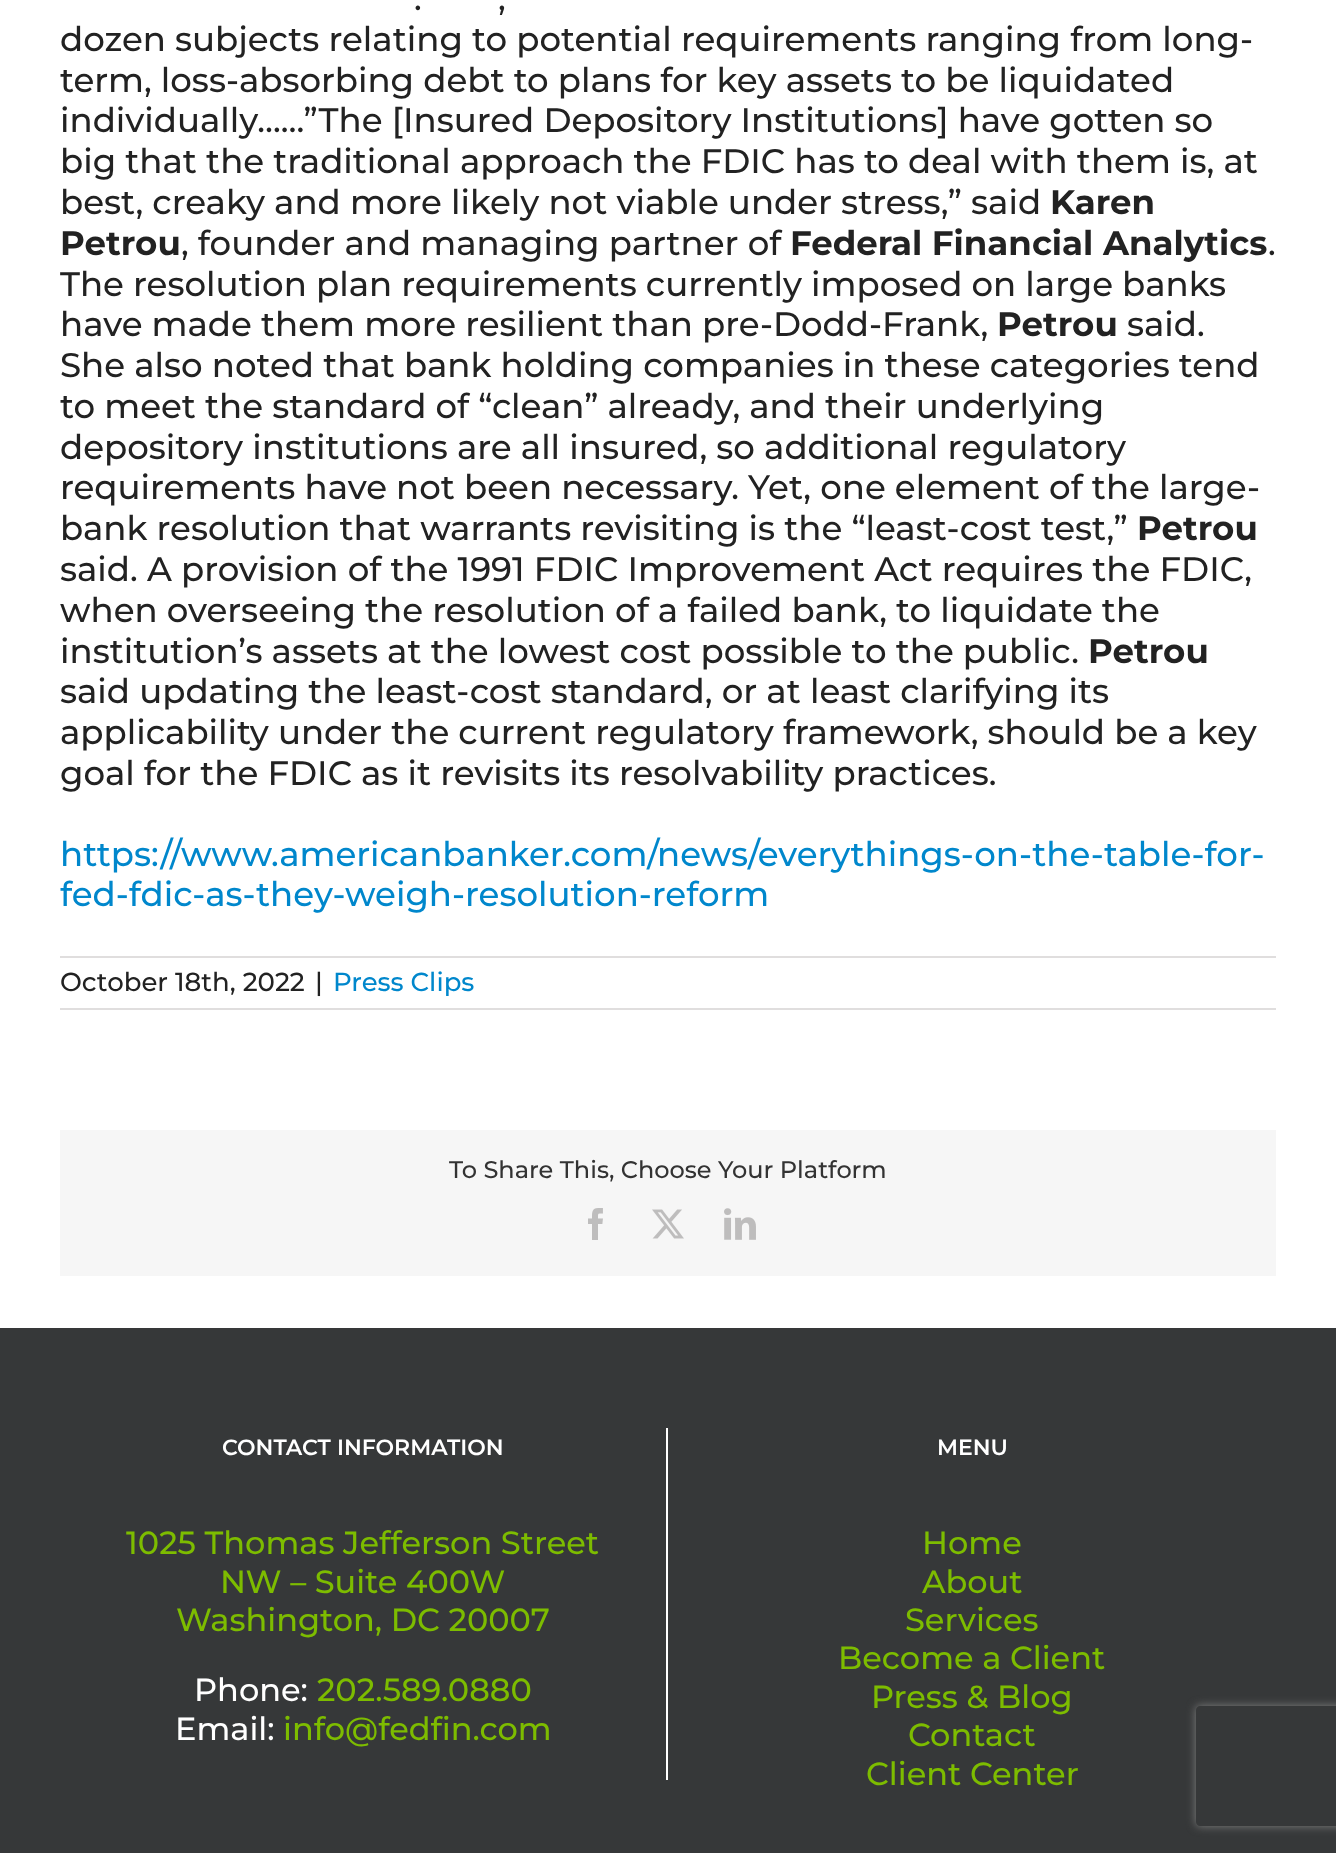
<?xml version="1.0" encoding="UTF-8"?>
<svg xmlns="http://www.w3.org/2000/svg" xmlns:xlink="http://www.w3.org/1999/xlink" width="1336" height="1853">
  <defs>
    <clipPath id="clip1"><path d="M 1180 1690 h 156 v 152 h -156 z m 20 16 h 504 c 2 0 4 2 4 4 v 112 c 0 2 -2 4 -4 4 h -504 c -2 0 -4 -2 -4 -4 v -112 c 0 -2 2 -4 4 -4 z" clip-rule="evenodd" /></clipPath>
  </defs>
  <rect width="100%" height="100%" fill="#ffffff" />
  <rect x="60" y="956" width="1216" height="2" fill="#e0dede" />
  <rect x="60" y="1008" width="1216" height="2" fill="#e0dede" />
  <rect x="60" y="1130" width="1216" height="146" fill="#f6f6f6" />
  <image x="588" y="1208" width="15" height="32" xlink:href="image1.png" />
  <image x="652" y="1209" width="32" height="30" xlink:href="image2.png" />
  <image x="724" y="1208" width="32" height="32" xlink:href="image3.png" />
  <rect y="1328" width="1336" height="525" fill="#363839" />
  <rect x="666" y="1428" width="2" height="352" fill="#ffffff" />
  <g clip-path="url(#clip1)">
    <rect x="1196" y="1706" width="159" height="120" rx="4" fill="#808080" filter="blur(5px)" />
  </g>
  <text x="414" y="10" style="font-family: Montserrat; font-size: 34px; font-weight: 500; fill: #222222">.</text>
  <text x="498" y="10" style="font-family: Montserrat; font-size: 34px; font-weight: 500; fill: #222222">,</text>
  <text x="60" y="51" style="font-family: Montserrat; font-size: 34px; font-weight: 500; fill: #222222">dozen subjects relating to potential requirements ranging from long-</text>
  <text x="60" y="92" style="font-family: Montserrat; font-size: 34px; font-weight: 500; fill: #222222">term, loss-absorbing debt to plans for key assets to be liquidated</text>
  <text x="60" y="132" style="font-family: Montserrat; font-size: 34px; font-weight: 500; fill: #222222">individually……”The [Insured Depository Institutions] have gotten so</text>
  <text x="60" y="173" style="font-family: Montserrat; font-size: 34px; font-weight: 500; fill: #222222">big that the traditional approach the FDIC has to deal with them is, at</text>
  <text x="60" y="214" style="font-family: Montserrat; font-size: 34px; font-weight: 500; fill: #222222">best, creaky and more likely not viable under stress,” said</text>
  <text x="1050" y="214" style="font-family: Montserrat; font-size: 34px; font-weight: bold; fill: #222222">Karen</text>
  <text x="60" y="255" style="font-family: Montserrat; font-size: 34px; font-weight: bold; fill: #222222">Petrou</text>
  <text x="181" y="255" style="font-family: Montserrat; font-size: 34px; font-weight: 500; fill: #222222">, founder and managing partner of</text>
  <text x="790" y="255" style="font-family: Montserrat; font-size: 34px; font-weight: bold; fill: #222222">Federal Financial Analytics</text>
  <text x="1268" y="255" style="font-family: Montserrat; font-size: 34px; font-weight: 500; fill: #222222">.</text>
  <text x="60" y="296" style="font-family: Montserrat; font-size: 34px; font-weight: 500; fill: #222222">The resolution plan requirements currently imposed on large banks</text>
  <text x="60" y="336" style="font-family: Montserrat; font-size: 34px; font-weight: 500; fill: #222222">have made them more resilient than pre-Dodd-Frank,</text>
  <text x="997" y="336" style="font-family: Montserrat; font-size: 34px; font-weight: bold; fill: #222222">Petrou</text>
  <text x="1127" y="336" style="font-family: Montserrat; font-size: 34px; font-weight: 500; fill: #222222">said.</text>
  <text x="60" y="377" style="font-family: Montserrat; font-size: 34px; font-weight: 500; fill: #222222">She also noted that bank holding companies in these categories tend</text>
  <text x="60" y="418" style="font-family: Montserrat; font-size: 34px; font-weight: 500; fill: #222222">to meet the standard of “clean” already, and their underlying</text>
  <text x="60" y="459" style="font-family: Montserrat; font-size: 34px; font-weight: 500; fill: #222222">depository institutions are all insured, so additional regulatory</text>
  <text x="60" y="499" style="font-family: Montserrat; font-size: 34px; font-weight: 500; fill: #222222">requirements have not been necessary. Yet, one element of the large-</text>
  <text x="60" y="540" style="font-family: Montserrat; font-size: 34px; font-weight: 500; fill: #222222">bank resolution that warrants revisiting is the “least-cost test,”</text>
  <text x="1137" y="540" style="font-family: Montserrat; font-size: 34px; font-weight: bold; fill: #222222">Petrou</text>
  <text x="60" y="581" style="font-family: Montserrat; font-size: 34px; font-weight: 500; fill: #222222">said. A provision of the 1991 FDIC Improvement Act requires the FDIC,</text>
  <text x="60" y="622" style="font-family: Montserrat; font-size: 34px; font-weight: 500; fill: #222222">when overseeing the resolution of a failed bank, to liquidate the</text>
  <text x="60" y="663" style="font-family: Montserrat; font-size: 34px; font-weight: 500; fill: #222222">institution’s assets at the lowest cost possible to the public.</text>
  <text x="1088" y="663" style="font-family: Montserrat; font-size: 34px; font-weight: bold; fill: #222222">Petrou</text>
  <text x="60" y="703" style="font-family: Montserrat; font-size: 34px; font-weight: 500; fill: #222222">said updating the least-cost standard, or at least clarifying its</text>
  <text x="60" y="744" style="font-family: Montserrat; font-size: 34px; font-weight: 500; fill: #222222">applicability under the current regulatory framework, should be a key</text>
  <text x="60" y="785" style="font-family: Montserrat; font-size: 34px; font-weight: 500; fill: #222222">goal for the FDIC as it revisits its resolvability practices.</text>
  <text x="60" y="866" style="font-family: Montserrat; font-size: 34px; font-weight: 500; fill: #0087cc">https://www.americanbanker.com/news/everythings-on-the-table-for-</text>
  <text x="60" y="906" style="font-family: Montserrat; font-size: 34px; font-weight: 500; fill: #0087cc">fed-fdic-as-they-weigh-resolution-reform</text>
  <text x="60" y="991" style="font-family: Montserrat; font-size: 26px; font-weight: 500; fill: #222222">October 18th, 2022</text>
  <text x="315" y="991" style="font-family: Montserrat; font-size: 26px; font-weight: 500; fill: #222222">|</text>
  <text x="333" y="991" style="font-family: Montserrat; font-size: 26px; font-weight: 500; fill: #0087cc">Press Clips</text>
  <text x="449" y="1178" style="font-family: Montserrat; font-size: 24px; font-weight: 500; fill: #333333">To Share This, Choose Your Platform</text>
  <text x="222" y="1455" style="font-family: Montserrat; font-size: 22px; font-weight: 600; fill: #ffffff">CONTACT INFORMATION</text>
  <text x="126" y="1554" style="font-family: Montserrat; font-size: 32px; font-weight: 500; fill: #7dbc00">1025 Thomas Jefferson Street</text>
  <text x="220" y="1593" style="font-family: Montserrat; font-size: 32px; font-weight: 500; fill: #7dbc00">NW – Suite 400W</text>
  <text x="176" y="1631" style="font-family: Montserrat; font-size: 32px; font-weight: 500; fill: #7dbc00">Washington, DC 20007</text>
  <text x="194" y="1701" style="font-family: Montserrat; font-size: 32px; font-weight: 500; fill: #ffffff">Phone:</text>
  <text x="317" y="1701" style="font-family: Montserrat; font-size: 32px; font-weight: 500; fill: #7dbc00">202.589.0880</text>
  <text x="175" y="1740" style="font-family: Montserrat; font-size: 32px; font-weight: 500; fill: #ffffff">Email:</text>
  <text x="283" y="1740" style="font-family: Montserrat; font-size: 32px; font-weight: 500; fill: #7dbc00">info@fedfin.com</text>
  <text x="937" y="1455" style="font-family: Montserrat; font-size: 22px; font-weight: 600; fill: #ffffff">MENU</text>
  <text x="922" y="1554" style="font-family: Montserrat; font-size: 32px; font-weight: 500; fill: #7dbc00">Home</text>
  <text x="922" y="1593" style="font-family: Montserrat; font-size: 32px; font-weight: 500; fill: #7dbc00">About</text>
  <text x="905" y="1631" style="font-family: Montserrat; font-size: 32px; font-weight: 500; fill: #7dbc00">Services</text>
  <text x="838" y="1669" style="font-family: Montserrat; font-size: 32px; font-weight: 500; fill: #7dbc00">Become a Client</text>
  <text x="871" y="1708" style="font-family: Montserrat; font-size: 32px; font-weight: 500; fill: #7dbc00">Press &amp; Blog</text>
  <text x="908" y="1746" style="font-family: Montserrat; font-size: 32px; font-weight: 500; fill: #7dbc00">Contact</text>
  <text x="866" y="1785" style="font-family: Montserrat; font-size: 32px; font-weight: 500; fill: #7dbc00">Client Center</text>
</svg>
